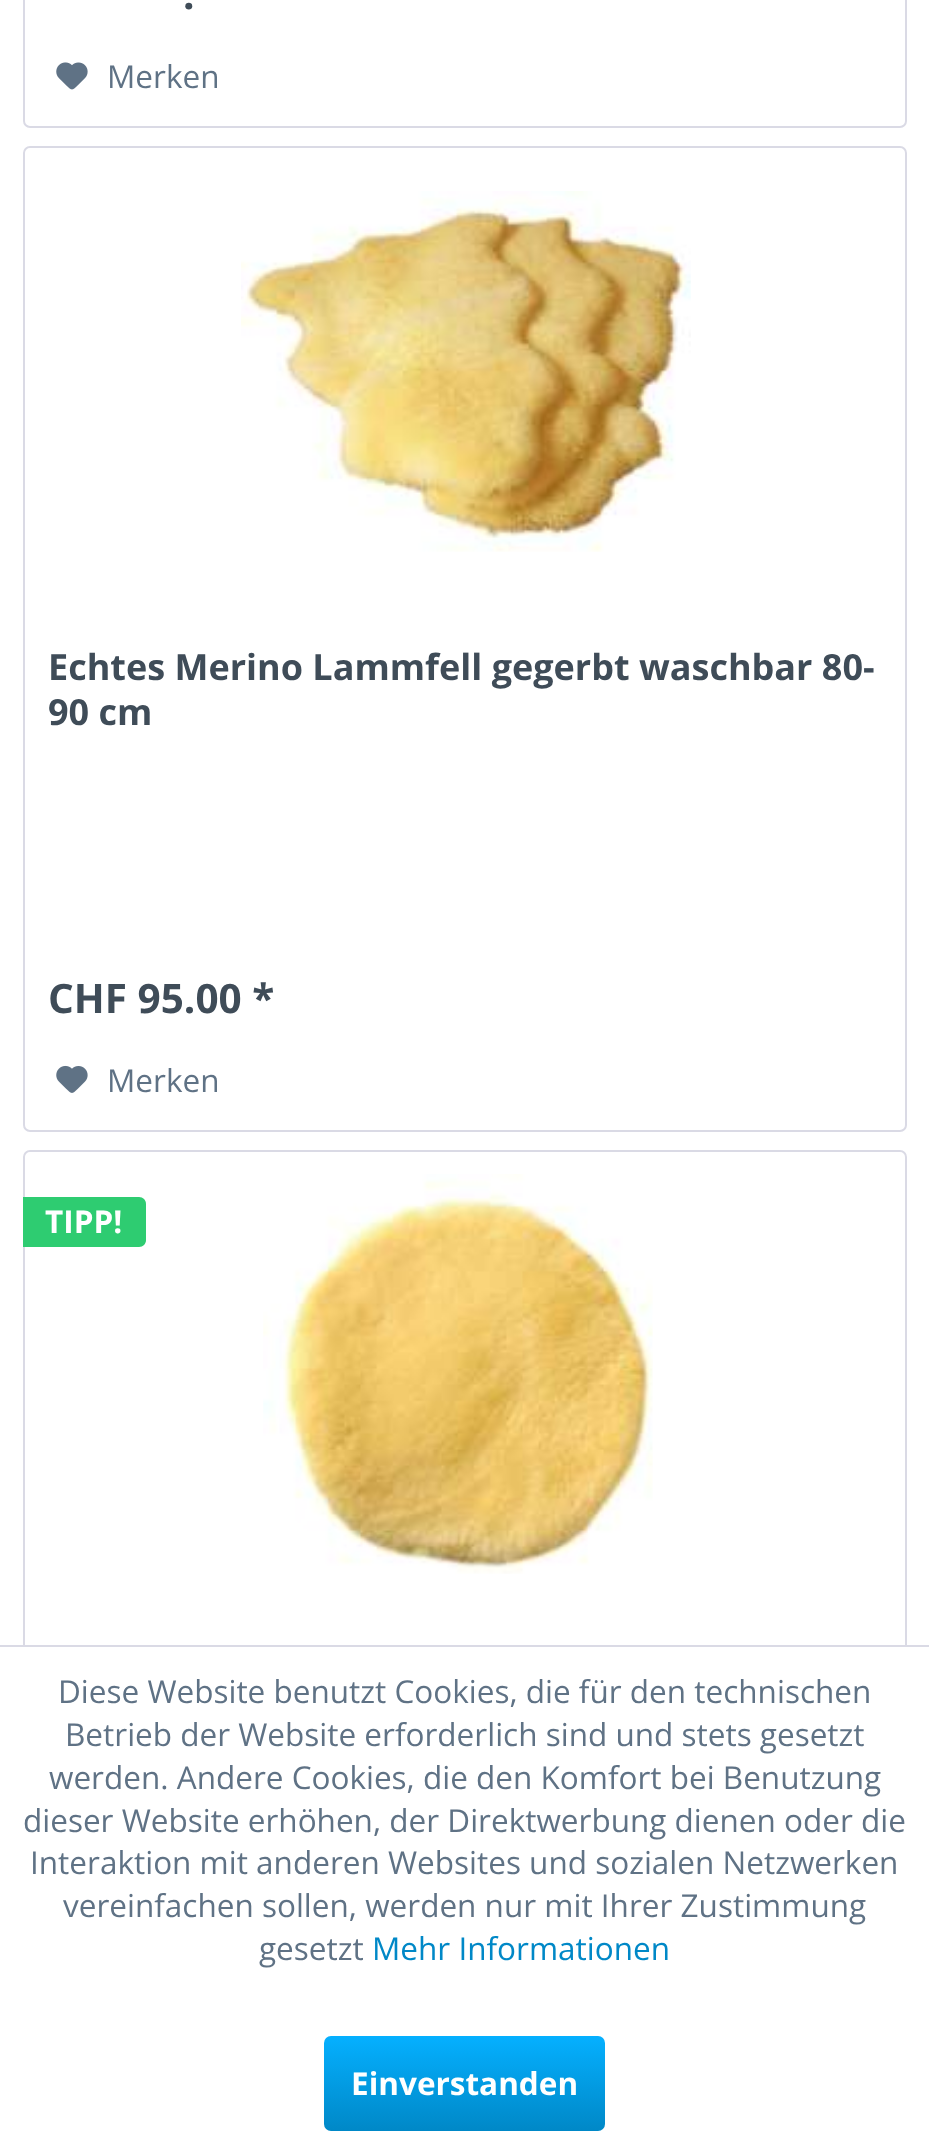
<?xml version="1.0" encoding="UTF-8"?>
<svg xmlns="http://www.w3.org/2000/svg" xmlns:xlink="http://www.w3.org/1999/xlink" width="929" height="2152">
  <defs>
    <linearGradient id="g1" gradientUnits="userSpaceOnUse" x1="465" y1="2036" x2="465" y2="2131"><stop offset="0" stop-color="#05b0ff" /><stop offset="1" stop-color="#0088c7" /></linearGradient>
  </defs>
  <rect width="100%" height="100%" fill="#ffffff" />
  <rect x="24" y="-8" width="882" height="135" rx="6" fill="none" stroke="#dadae5" stroke-width="2" />
  <image x="56" y="62" width="32" height="28" xlink:href="image1.png" />
  <rect x="24" y="147" width="882" height="984" rx="6" fill="none" stroke="#dadae5" stroke-width="2" />
  <image x="241" y="191" width="450" height="361" xlink:href="image2.png" />
  <image x="56" y="1065" width="32" height="28" xlink:href="image3.png" />
  <rect x="24" y="1151" width="882" height="983" rx="6" fill="none" stroke="#dadae5" stroke-width="2" />
  <path d="M 23 1197 h 116 c 4 0 7 3 7 7 v 36 c 0 4 -3 7 -7 7 h -116 z" fill="#2ecc71" />
  <image x="263" y="1174" width="390" height="400" xlink:href="image4.png" />
  <rect x="23" y="1647" width="884" height="488" fill="#ffffff" />
  <rect y="1645" width="929" height="2" fill="#dadae5" />
  <rect x="324" y="2036" width="281" height="95" rx="7" fill="url(#g1)" />
  <text x="183" y="9" style="font-family: Open Sans; font-size: 40.5px; font-weight: bold; fill: #3f4c58">.</text>
  <text x="107" y="88" style="font-family: Open Sans; font-size: 31.5px; fill: #5f7285">Merken</text>
  <text x="48" y="680" style="font-family: Open Sans; font-size: 36px; font-weight: bold; fill: #3f4c58">Echtes Merino Lammfell gegerbt waschbar 80-</text>
  <text x="48" y="725" style="font-family: Open Sans; font-size: 36px; font-weight: bold; fill: #3f4c58">90 cm</text>
  <text x="48" y="1013" style="font-family: Open Sans; font-size: 40.5px; font-weight: bold; fill: #3f4c58">CHF 95.00 *</text>
  <text x="107" y="1092" style="font-family: Open Sans; font-size: 31.5px; fill: #5f7285">Merken</text>
  <text x="45" y="1233" style="font-family: Open Sans; font-size: 31.5px; font-weight: bold; fill: #ffffff">TIPP!</text>
  <text x="58" y="1703" style="font-family: Open Sans; font-size: 31.5px; fill: #5f7285">Diese Website benutzt Cookies, die für den technischen</text>
  <text x="65" y="1746" style="font-family: Open Sans; font-size: 31.5px; fill: #5f7285">Betrieb der Website erforderlich sind und stets gesetzt</text>
  <text x="49" y="1789" style="font-family: Open Sans; font-size: 31.5px; fill: #5f7285">werden. Andere Cookies, die den Komfort bei Benutzung</text>
  <text x="23" y="1832" style="font-family: Open Sans; font-size: 31.5px; fill: #5f7285">dieser Website erhöhen, der Direktwerbung dienen oder die</text>
  <text x="30" y="1874" style="font-family: Open Sans; font-size: 31.5px; fill: #5f7285">Interaktion mit anderen Websites und sozialen Netzwerken</text>
  <text x="63" y="1917" style="font-family: Open Sans; font-size: 31.5px; fill: #5f7285">vereinfachen sollen, werden nur mit Ihrer Zustimmung</text>
  <text x="259" y="1960" style="font-family: Open Sans; font-size: 31.5px; fill: #5f7285">gesetzt</text>
  <text x="372" y="1960" style="font-family: Open Sans; font-size: 31.5px; fill: #0088c7">Mehr Informationen</text>
  <text x="351" y="2095" style="font-family: Open Sans; font-size: 31.5px; font-weight: bold; fill: #ffffff">Einverstanden</text>
</svg>
